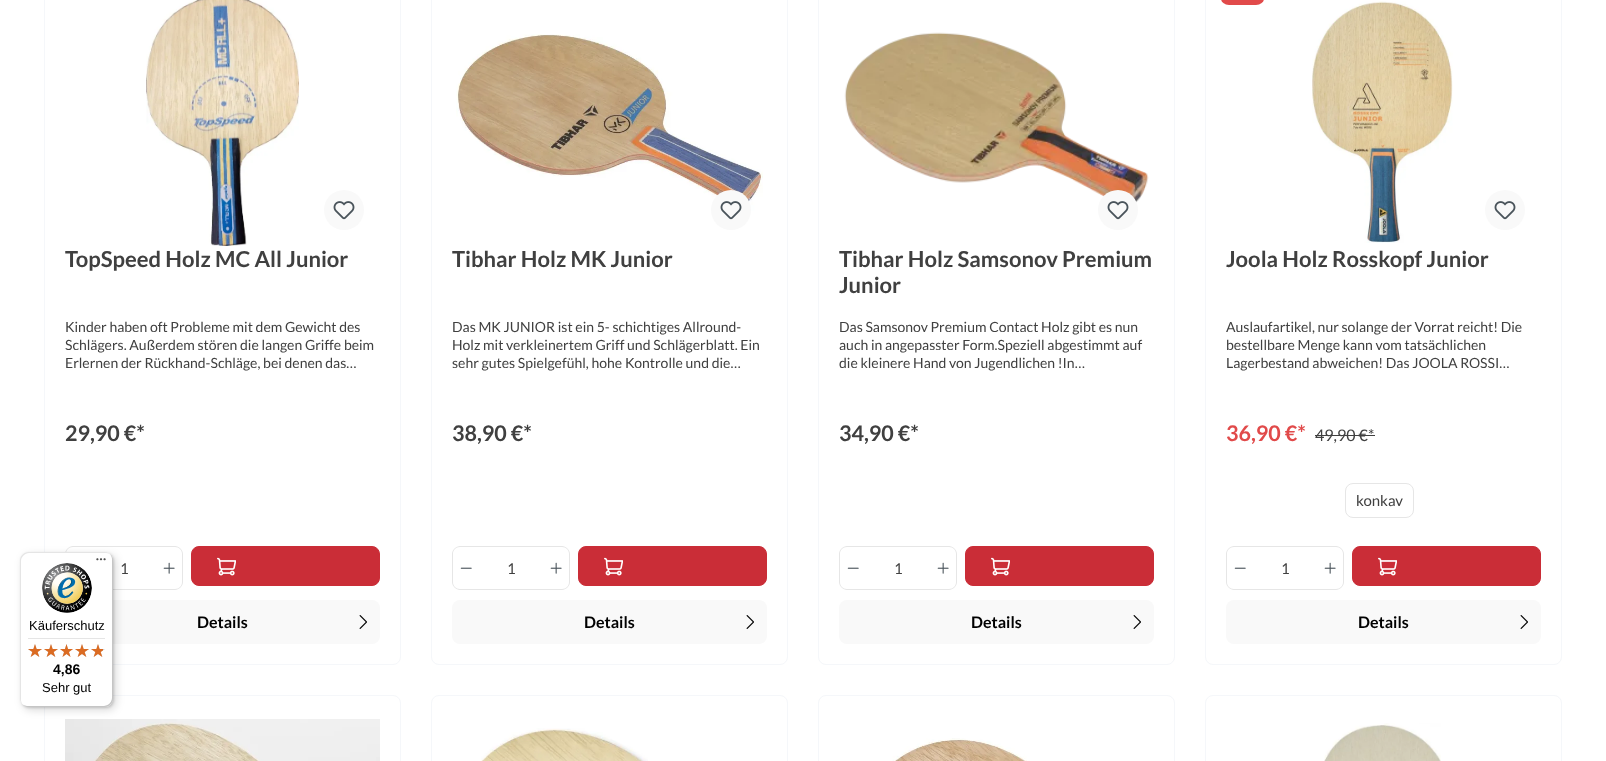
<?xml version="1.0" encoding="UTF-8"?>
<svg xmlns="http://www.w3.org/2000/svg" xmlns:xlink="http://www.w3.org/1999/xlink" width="1606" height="761">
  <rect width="100%" height="100%" fill="#ffffff" />
  <rect x="44.5" y="-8.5" width="356" height="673" rx="7.5" fill="none" stroke="#f5f7fa" />
  <image x="146" y="0" width="153" height="246" xlink:href="image1.png" />
  <circle cx="344" cy="210" r="20" fill="#f9f9f9" />
  <image x="333" y="201" width="22" height="19" xlink:href="image2.png" />
  <rect x="92" y="546" width="65" height="1" fill="#e6e6e6" />
  <path d="M 73 546 h 20 v 44 h -20 c -4 0 -8 -4 -8 -8 v -28 c 0 -4 4 -8 8 -8 z m 0 1 h 20 v 42 h -20 c -4 0 -7 -3 -7 -7 v -28 c 0 -4 3 -7 7 -7 z" fill="#e6e6e6" fill-rule="evenodd" />
  <rect x="113" y="589" width="44" height="1" fill="#e6e6e6" />
  <path d="M 156 546 h 19 c 4 0 8 4 8 8 v 28 c 0 4 -4 8 -8 8 h -19 z m 0 1 h 19 c 4 0 7 3 7 7 v 28 c 0 4 -3 7 -7 7 h -19 z" fill="#e6e6e6" fill-rule="evenodd" />
  <image x="163" y="562" width="12" height="12" xlink:href="image3.png" />
  <rect x="191.5" y="546.5" width="188" height="39" rx="7.5" fill="#ca2d37" stroke="#ca2d37" />
  <image x="217" y="557" width="19" height="19" xlink:href="image4.png" />
  <rect x="65" y="600" width="315" height="44" rx="8" fill="#f9f9f9" />
  <image x="359" y="615" width="8" height="14" xlink:href="image5.png" />
  <rect x="431.5" y="-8.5" width="356" height="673" rx="7.5" fill="none" stroke="#f5f7fa" />
  <image x="456" y="34" width="307" height="177" xlink:href="image6.png" />
  <circle cx="731" cy="210" r="20" fill="#f9f9f9" />
  <image x="720" y="201" width="22" height="19" xlink:href="image2.png" />
  <rect x="479" y="546" width="65" height="1" fill="#e6e6e6" />
  <rect x="479" y="589" width="65" height="1" fill="#e6e6e6" />
  <path d="M 460 546 h 20 v 44 h -20 c -4 0 -8 -4 -8 -8 v -28 c 0 -4 4 -8 8 -8 z m 0 1 h 20 v 42 h -20 c -4 0 -7 -3 -7 -7 v -28 c 0 -4 3 -7 7 -7 z" fill="#e6e6e6" fill-rule="evenodd" />
  <image x="460" y="567" width="12" height="2" xlink:href="image7.png" />
  <path d="M 543 546 h 19 c 4 0 8 4 8 8 v 28 c 0 4 -4 8 -8 8 h -19 z m 0 1 h 19 c 4 0 7 3 7 7 v 28 c 0 4 -3 7 -7 7 h -19 z" fill="#e6e6e6" fill-rule="evenodd" />
  <image x="550" y="562" width="12" height="12" xlink:href="image3.png" />
  <rect x="578.5" y="546.5" width="188" height="39" rx="7.5" fill="#ca2d37" stroke="#ca2d37" />
  <image x="604" y="557" width="19" height="19" xlink:href="image4.png" />
  <rect x="452" y="600" width="315" height="44" rx="8" fill="#f9f9f9" />
  <image x="746" y="615" width="8" height="14" xlink:href="image5.png" />
  <rect x="818.5" y="-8.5" width="356" height="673" rx="7.5" fill="none" stroke="#f5f7fa" />
  <image x="844" y="32" width="305" height="171" xlink:href="image8.png" />
  <circle cx="1118" cy="210" r="20" fill="#f9f9f9" />
  <image x="1107" y="201" width="22" height="19" xlink:href="image2.png" />
  <rect x="866" y="546" width="65" height="1" fill="#e6e6e6" />
  <rect x="866" y="589" width="65" height="1" fill="#e6e6e6" />
  <path d="M 847 546 h 20 v 44 h -20 c -4 0 -8 -4 -8 -8 v -28 c 0 -4 4 -8 8 -8 z m 0 1 h 20 v 42 h -20 c -4 0 -7 -3 -7 -7 v -28 c 0 -4 3 -7 7 -7 z" fill="#e6e6e6" fill-rule="evenodd" />
  <image x="847" y="567" width="12" height="2" xlink:href="image7.png" />
  <path d="M 930 546 h 19 c 4 0 8 4 8 8 v 28 c 0 4 -4 8 -8 8 h -19 z m 0 1 h 19 c 4 0 7 3 7 7 v 28 c 0 4 -3 7 -7 7 h -19 z" fill="#e6e6e6" fill-rule="evenodd" />
  <image x="937" y="562" width="12" height="12" xlink:href="image3.png" />
  <rect x="965.5" y="546.5" width="188" height="39" rx="7.5" fill="#ca2d37" stroke="#ca2d37" />
  <image x="991" y="557" width="19" height="19" xlink:href="image4.png" />
  <rect x="839" y="600" width="315" height="44" rx="8" fill="#f9f9f9" />
  <image x="1133" y="615" width="8" height="14" xlink:href="image5.png" />
  <rect x="1205.5" y="-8.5" width="356" height="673" rx="7.5" fill="none" stroke="#f5f7fa" />
  <rect x="1221" y="-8" width="43" height="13" rx="8" fill="#e14a4a" />
  <image x="1312" y="1" width="141" height="242" xlink:href="image9.png" />
  <circle cx="1505" cy="210" r="20" fill="#f9f9f9" />
  <image x="1494" y="201" width="22" height="19" xlink:href="image2.png" />
  <rect x="1315" y="435" width="60" height="1" fill="#404040" />
  <rect x="1345.5" y="483.5" width="68" height="34" rx="7.5" fill="none" stroke="#e6e6e6" />
  <rect x="1253" y="546" width="65" height="1" fill="#e6e6e6" />
  <rect x="1253" y="589" width="65" height="1" fill="#e6e6e6" />
  <path d="M 1234 546 h 20 v 44 h -20 c -4 0 -8 -4 -8 -8 v -28 c 0 -4 4 -8 8 -8 z m 0 1 h 20 v 42 h -20 c -4 0 -7 -3 -7 -7 v -28 c 0 -4 3 -7 7 -7 z" fill="#e6e6e6" fill-rule="evenodd" />
  <image x="1234" y="567" width="12" height="2" xlink:href="image7.png" />
  <path d="M 1317 546 h 19 c 4 0 8 4 8 8 v 28 c 0 4 -4 8 -8 8 h -19 z m 0 1 h 19 c 4 0 7 3 7 7 v 28 c 0 4 -3 7 -7 7 h -19 z" fill="#e6e6e6" fill-rule="evenodd" />
  <image x="1324" y="562" width="12" height="12" xlink:href="image3.png" />
  <rect x="1352.5" y="546.5" width="188" height="39" rx="7.5" fill="#ca2d37" stroke="#ca2d37" />
  <image x="1378" y="557" width="19" height="19" xlink:href="image4.png" />
  <rect x="1226" y="600" width="315" height="44" rx="8" fill="#f9f9f9" />
  <image x="1520" y="615" width="8" height="14" xlink:href="image5.png" />
  <rect x="44.5" y="695.5" width="356" height="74" rx="7.5" fill="none" stroke="#f5f7fa" />
  <image x="65" y="719" width="315" height="42" xlink:href="image10.png" />
  <rect x="431.5" y="695.5" width="356" height="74" rx="7.5" fill="none" stroke="#f5f7fa" />
  <image x="481" y="728" width="167" height="33" xlink:href="image11.png" />
  <rect x="818.5" y="695.5" width="356" height="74" rx="7.5" fill="none" stroke="#f5f7fa" />
  <image x="892" y="738" width="135" height="23" xlink:href="image12.png" />
  <rect x="1205.5" y="695.5" width="356" height="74" rx="7.5" fill="none" stroke="#f5f7fa" />
  <image x="1324" y="723" width="117" height="38" xlink:href="image13.png" />
  <rect x="23" y="555" width="93" height="155" rx="8" fill="#000000" fill-opacity="0.15" filter="blur(4px)" />
  <rect x="21" y="553" width="93" height="155" rx="8" fill="#000000" fill-opacity="0.15" filter="blur(1px)" />
  <rect x="20" y="552" width="93" height="155" rx="8" fill="#ffffff" />
  <path d="M 29 553 h 77 c 2 0 4 1 6 3 c -2 -2 -4 -4 -7 -4 h -77 c -4 0 -8 4 -8 8 v 139 c 0 3 2 5 4 7 c -2 -2 -3 -4 -3 -6 v -139 c 0 -4 4 -8 8 -8 z" fill="#e5e5e5" />
  <path d="M 21 703 c 2 2 4 4 7 4 h 77 c 4 0 8 -4 8 -8 v -139 c 0 -3 -2 -5 -4 -7 c 2 2 3 4 3 6 v 139 c 0 4 -4 8 -8 8 h -77 c -2 0 -4 -1 -6 -3 z" fill="#cccccc" />
  <path d="M 22 704 c 1 2 4 3 6 3 h 77 c 4 0 8 -4 8 -8 v -139 c 0 -2 -1 -5 -3 -6 c 1 1 2 3 2 5 v 139 c 0 5 -3 8 -8 8 h -77 c -2 0 -4 -1 -5 -2 z" fill="#323232" fill-opacity="0.2" />
  <path d="M 112 560 c 0 -5 -3 -8 -8 -8 h 1 c 4 0 8 4 8 8 v 139 c 0 4 -4 8 -8 8 h -77 c -4 0 -8 -4 -8 -8 v -1 c 0 5 3 8 8 8 h 76 c 5 0 8 -3 8 -8 z" fill="#ffffff" fill-opacity="0.3" />
  <image x="96" y="558" width="10" height="3" xlink:href="image14.png" />
  <image x="42" y="563" width="50" height="50" xlink:href="image15.png" />
  <rect x="28" y="638" width="77" height="1" fill="#e5e5e5" />
  <image x="28" y="644" width="14" height="13" xlink:href="image16.png" />
  <image x="44" y="644" width="14" height="13" xlink:href="image16.png" />
  <image x="60" y="644" width="13" height="13" xlink:href="image17.png" />
  <image x="75" y="644" width="14" height="13" xlink:href="image16.png" />
  <image x="91" y="644" width="14" height="13" xlink:href="image16.png" />
  <image x="28" y="644" width="14" height="13" xlink:href="image18.png" />
  <image x="44" y="644" width="14" height="13" xlink:href="image18.png" />
  <image x="60" y="644" width="13" height="13" xlink:href="image19.png" />
  <image x="75" y="644" width="14" height="13" xlink:href="image18.png" />
  <image x="91" y="644" width="12" height="13" xlink:href="image20.png" />
  <text x="65" y="267" style="font-family: Lato; font-size: 22px; font-weight: bold; fill: #404040">TopSpeed Holz MC All Junior</text>
  <text x="65" y="332" style="font-family: Lato; font-size: 14px; fill: #404040">Kinder haben oft Probleme mit dem Gewicht des</text>
  <text x="65" y="350" style="font-family: Lato; font-size: 14px; fill: #404040">Schlägers. Außerdem stören die langen Griffe beim</text>
  <text x="65" y="368" style="font-family: Lato; font-size: 14px; fill: #404040">Erlernen der Rückhand-Schläge, bei denen das…</text>
  <text x="65" y="441" style="font-family: Lato; font-size: 21.5px; font-weight: bold; fill: #404040">29,90 €*</text>
  <text x="120" y="574" style="font-family: Lato; font-size: 15px; fill: #404040">1</text>
  <text x="197" y="628" style="font-family: Lato; font-size: 16px; font-weight: bold; fill: #000000">Details</text>
  <text x="452" y="267" style="font-family: Lato; font-size: 22px; font-weight: bold; fill: #404040">Tibhar Holz MK Junior</text>
  <text x="452" y="332" style="font-family: Lato; font-size: 14px; fill: #404040">Das MK JUNIOR ist ein 5- schichtiges Allround-</text>
  <text x="452" y="350" style="font-family: Lato; font-size: 14px; fill: #404040">Holz mit verkleinertem Griff und Schlägerblatt. Ein</text>
  <text x="452" y="368" style="font-family: Lato; font-size: 14px; fill: #404040">sehr gutes Spielgefühl, hohe Kontrolle und die…</text>
  <text x="452" y="441" style="font-family: Lato; font-size: 21.5px; font-weight: bold; fill: #404040">38,90 €*</text>
  <text x="507" y="574" style="font-family: Lato; font-size: 15px; fill: #404040">1</text>
  <text x="584" y="628" style="font-family: Lato; font-size: 16px; font-weight: bold; fill: #000000">Details</text>
  <text x="839" y="267" style="font-family: Lato; font-size: 22px; font-weight: bold; fill: #404040">Tibhar Holz Samsonov Premium</text>
  <text x="839" y="293" style="font-family: Lato; font-size: 22px; font-weight: bold; fill: #404040">Junior</text>
  <text x="839" y="332" style="font-family: Lato; font-size: 14px; fill: #404040">Das Samsonov Premium Contact Holz gibt es nun</text>
  <text x="839" y="350" style="font-family: Lato; font-size: 14px; fill: #404040">auch in angepasster Form.Speziell abgestimmt auf</text>
  <text x="839" y="368" style="font-family: Lato; font-size: 14px; fill: #404040">die kleinere Hand von Jugendlichen !In…</text>
  <text x="839" y="441" style="font-family: Lato; font-size: 21.5px; font-weight: bold; fill: #404040">34,90 €*</text>
  <text x="894" y="574" style="font-family: Lato; font-size: 15px; fill: #404040">1</text>
  <text x="971" y="628" style="font-family: Lato; font-size: 16px; font-weight: bold; fill: #000000">Details</text>
  <text x="1226" y="267" style="font-family: Lato; font-size: 22px; font-weight: bold; fill: #404040">Joola Holz Rosskopf Junior</text>
  <text x="1226" y="332" style="font-family: Lato; font-size: 14px; fill: #404040">Auslaufartikel, nur solange der Vorrat reicht! Die</text>
  <text x="1226" y="350" style="font-family: Lato; font-size: 14px; fill: #404040">bestellbare Menge kann vom tatsächlichen</text>
  <text x="1226" y="368" style="font-family: Lato; font-size: 14px; fill: #404040">Lagerbestand abweichen! Das JOOLA ROSSI…</text>
  <text x="1226" y="441" style="font-family: Lato; font-size: 21.5px; font-weight: bold; fill: #e14a4a">36,90 €*</text>
  <text x="1315" y="441" style="font-family: Lato; font-size: 16px; fill: #404040">49,90 €*</text>
  <text x="1356" y="506" style="font-family: Lato; font-size: 15px; fill: #404040">konkav</text>
  <text x="1281" y="574" style="font-family: Lato; font-size: 15px; fill: #404040">1</text>
  <text x="1358" y="628" style="font-family: Lato; font-size: 16px; font-weight: bold; fill: #000000">Details</text>
  <text x="29" y="630" style="font-family: Liberation Sans; font-size: 13px; fill: #000000">Käuferschutz</text>
  <text x="53" y="674" style="font-family: Liberation Sans; font-size: 14px; font-weight: bold; fill: #000000">4,86</text>
  <text x="42" y="692" style="font-family: Liberation Sans; font-size: 13px; fill: #000000">Sehr gut</text>
</svg>
